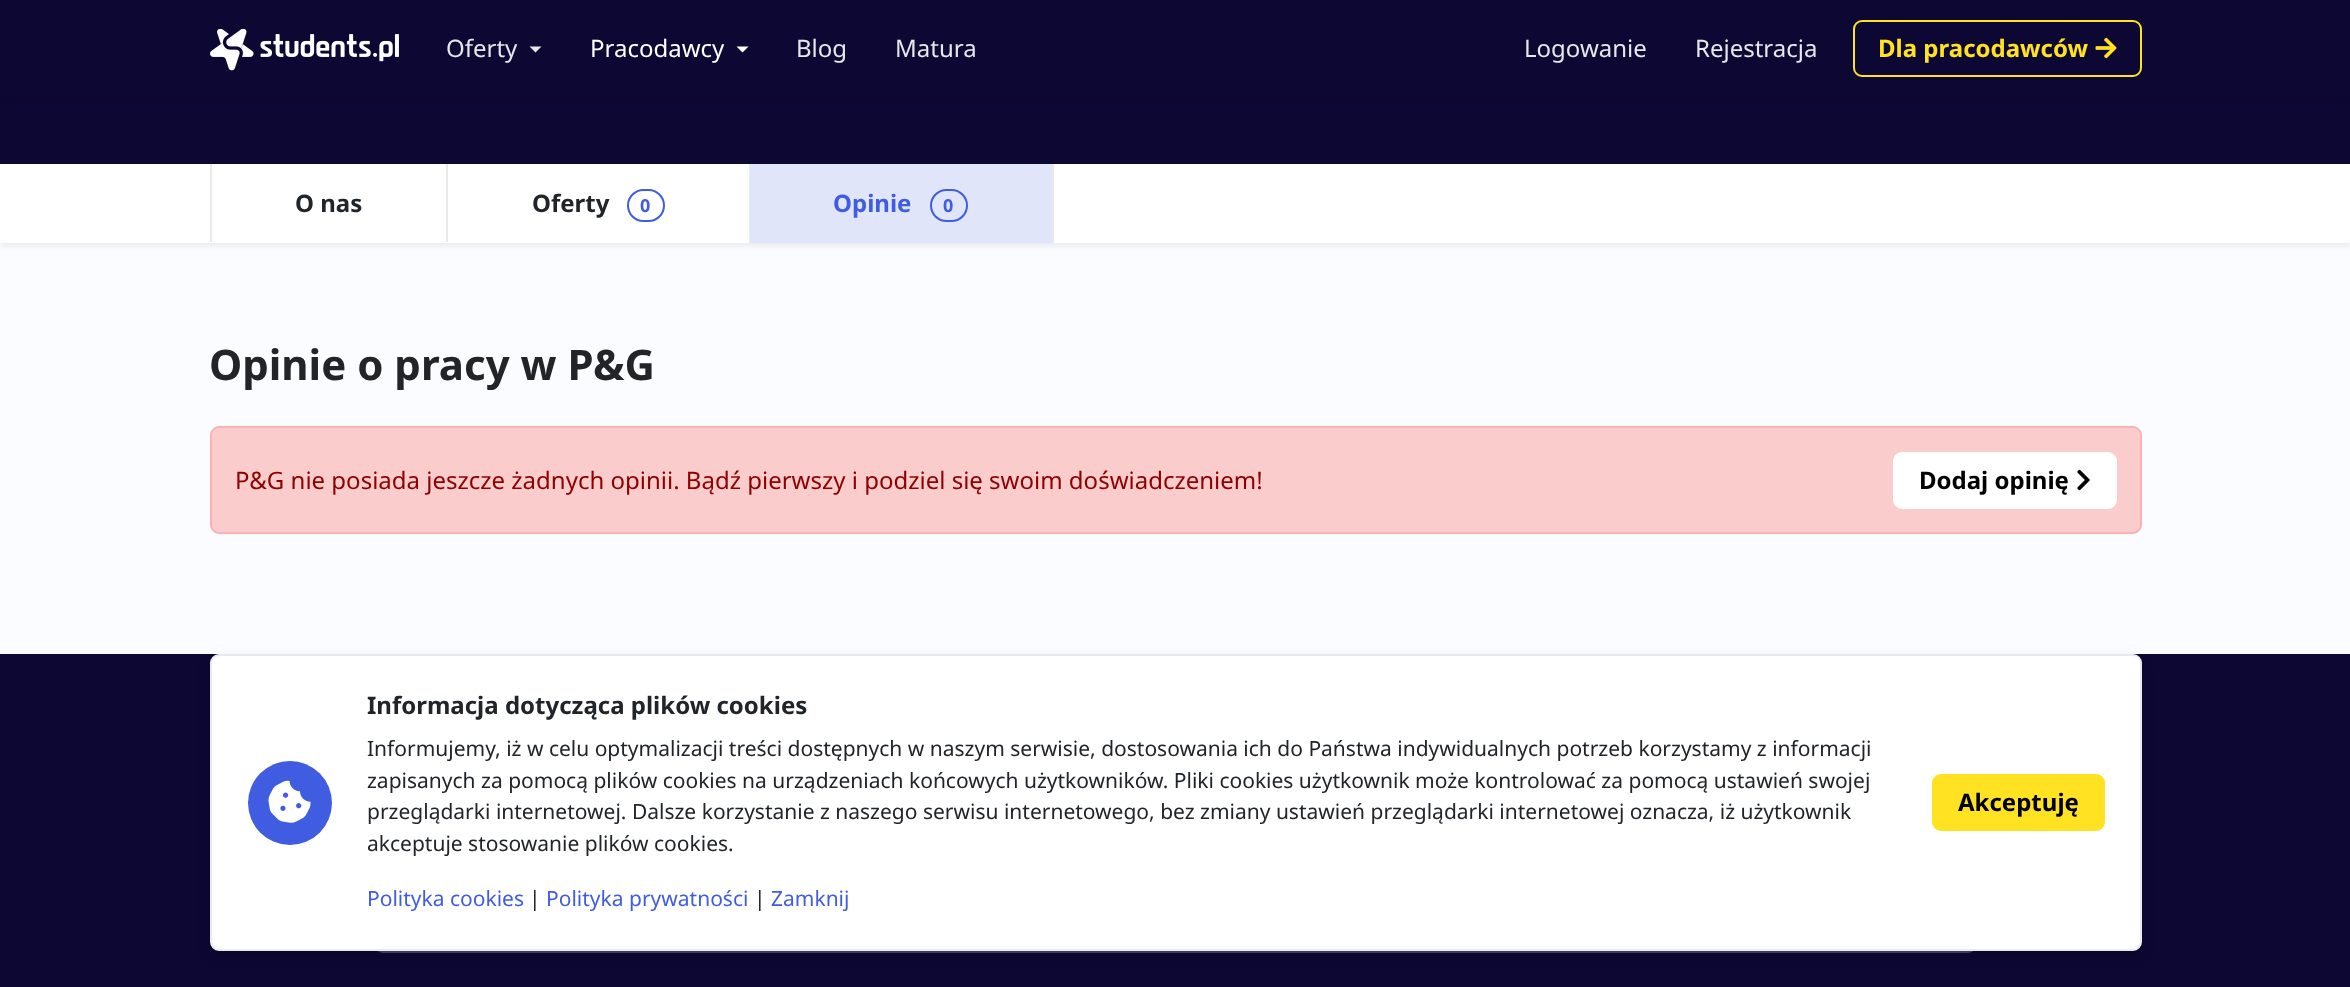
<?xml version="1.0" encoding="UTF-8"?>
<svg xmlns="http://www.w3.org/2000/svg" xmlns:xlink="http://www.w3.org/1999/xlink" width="2350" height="987">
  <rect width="100%" height="100%" fill="#fbfcff" />
  <rect y="-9" width="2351" height="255" fill="#000000" fill-opacity="0.07" filter="blur(3px)" />
  <rect y="96" width="2350" height="68" fill="#0d0733" />
  <rect y="3" width="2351" height="96" fill="#000000" fill-opacity="0.07" filter="blur(3px)" />
  <rect width="2350" height="96" fill="#0d0733" />
  <image x="210" y="29" width="189" height="42" xlink:href="image1.png" />
  <path d="M 529.5 46.5 h 12 l -6 6 z" fill="#e7e6eb" />
  <path d="M 736.5 46.5 h 12 l -6 6 z" fill="#ffffff" />
  <rect x="1854" y="21" width="287" height="55" rx="8" fill="none" stroke="#ffe221" stroke-width="2" />
  <image x="2095" y="37" width="22" height="22" xlink:href="image2.png" />
  <rect y="164" width="2350" height="79" fill="#ffffff" />
  <rect x="446" y="164" width="2" height="78" fill="#eaeaea" />
  <rect x="210" y="164" width="2" height="78" fill="#eaeaea" />
  <rect x="749" y="164" width="1" height="79" fill="#eaeaea" />
  <rect x="628" y="190" width="36" height="31" rx="15.5" fill="none" stroke="#405ce0" stroke-width="2" />
  <rect x="750" y="164" width="302" height="79" fill="#e0e5fa" />
  <rect x="1052" y="164" width="2" height="79" fill="#eaeaea" />
  <rect x="931" y="190" width="36" height="31" rx="15.5" fill="none" stroke="#405ce0" stroke-width="2" />
  <rect x="211" y="427" width="1930" height="106" rx="8" fill="#fbcccc" stroke="#f9b3b3" stroke-width="2" />
  <rect x="1894" y="453" width="222" height="55" rx="8" fill="#ffffff" stroke="#ffffff" stroke-width="2" />
  <image x="2077" y="469" width="13" height="22" xlink:href="image3.png" />
  <rect y="654" width="2350" height="333" fill="#0d0733" />
  <rect x="375" y="751" width="1601" height="201" rx="8" fill="none" stroke="#ffffff" stroke-opacity="0.25" stroke-width="2" />
  <rect x="210" y="660" width="1932" height="297" rx="9" fill="#000000" fill-opacity="0.15" filter="blur(6px)" />
  <rect x="211" y="655" width="1930" height="295" rx="8" fill="#ffffff" stroke="#e9ecef" stroke-width="2" />
  <circle cx="290" cy="803" r="42" fill="#405ce0" />
  <image x="268" y="780" width="43" height="43" xlink:href="image4.png" />
  <rect x="1933" y="775" width="171" height="55" rx="8" fill="#ffe221" stroke="#ffe221" stroke-width="2" />
  <text x="446" y="57" style="font-family: Noto Sans; font-size: 24px; fill: #e7e6eb">Oferty</text>
  <text x="590" y="57" style="font-family: Noto Sans; font-size: 24px; fill: #ffffff">Pracodawcy</text>
  <text x="796" y="57" style="font-family: Noto Sans; font-size: 24px; fill: #e7e6eb">Blog</text>
  <text x="895" y="57" style="font-family: Noto Sans; font-size: 24px; fill: #e7e6eb">Matura</text>
  <text x="1524" y="57" style="font-family: Noto Sans; font-size: 24px; fill: #e7e6eb">Logowanie</text>
  <text x="1695" y="57" style="font-family: Noto Sans; font-size: 24px; fill: #e7e6eb">Rejestracja</text>
  <text x="1878" y="57" style="font-family: Noto Sans; font-size: 24px; font-weight: bold; fill: #ffe221">Dla pracodawców</text>
  <text x="295" y="212" style="font-family: Noto Sans; font-size: 24px; font-weight: bold; fill: #212529">O nas</text>
  <text x="532" y="212" style="font-family: Noto Sans; font-size: 24px; font-weight: bold; fill: #212529">Oferty</text>
  <text x="640" y="212" style="font-family: Noto Sans; font-size: 18px; font-weight: bold; fill: #405ce0">0</text>
  <text x="833" y="212" style="font-family: Noto Sans; font-size: 24px; font-weight: bold; fill: #405ce0">Opinie</text>
  <text x="943" y="212" style="font-family: Noto Sans; font-size: 18px; font-weight: bold; fill: #405ce0">0</text>
  <text x="209" y="380" style="font-family: Noto Sans; font-size: 42px; font-weight: bold; fill: #212529">Opinie o pracy w P&amp;G</text>
  <text x="235" y="489" style="font-family: Noto Sans; font-size: 24px; fill: #8d0101">P&amp;G nie posiada jeszcze żadnych opinii. Bądź pierwszy i podziel się swoim doświadczeniem!</text>
  <text x="1919" y="489" style="font-family: Noto Sans; font-size: 24px; font-weight: bold; fill: #000000">Dodaj opinię</text>
  <text x="367" y="714" style="font-family: Noto Sans; font-size: 24px; font-weight: bold; fill: #212529">Informacja dotycząca plików cookies</text>
  <text x="367" y="756" style="font-family: Noto Sans; font-size: 21px; fill: #212529">Informujemy, iż w celu optymalizacji treści dostępnych w naszym serwisie, dostosowania ich do Państwa indywidualnych potrzeb korzystamy z informacji</text>
  <text x="367" y="788" style="font-family: Noto Sans; font-size: 21px; fill: #212529">zapisanych za pomocą plików cookies na urządzeniach końcowych użytkowników. Pliki cookies użytkownik może kontrolować za pomocą ustawień swojej</text>
  <text x="367" y="819" style="font-family: Noto Sans; font-size: 21px; fill: #212529">przeglądarki internetowej. Dalsze korzystanie z naszego serwisu internetowego, bez zmiany ustawień przeglądarki internetowej oznacza, iż użytkownik</text>
  <text x="367" y="851" style="font-family: Noto Sans; font-size: 21px; fill: #212529">akceptuje stosowanie plików cookies.</text>
  <text x="367" y="906" style="font-family: Noto Sans; font-size: 21px; fill: #405ce0">Polityka cookies</text>
  <text x="529" y="906" style="font-family: Noto Sans; font-size: 21px; fill: #212529">|</text>
  <text x="546" y="906" style="font-family: Noto Sans; font-size: 21px; fill: #405ce0">Polityka prywatności</text>
  <text x="754" y="906" style="font-family: Noto Sans; font-size: 21px; fill: #212529">|</text>
  <text x="771" y="906" style="font-family: Noto Sans; font-size: 21px; fill: #405ce0">Zamknij</text>
  <text x="1958" y="811" style="font-family: Noto Sans; font-size: 24px; font-weight: bold; fill: #000000">Akceptuję</text>
</svg>
